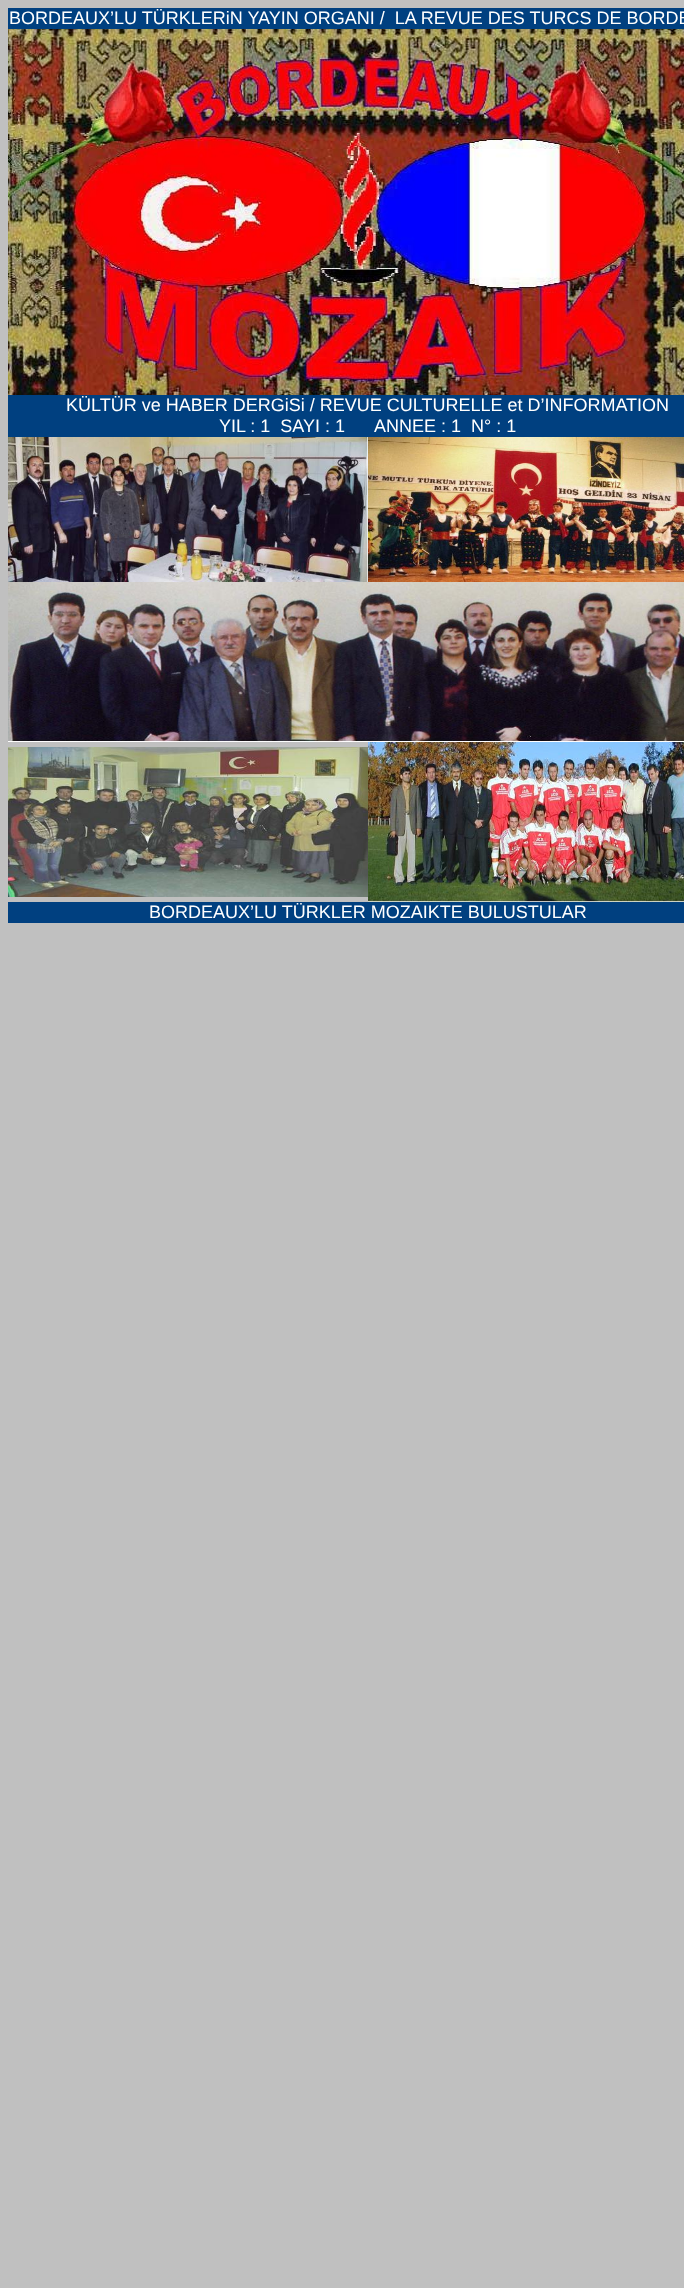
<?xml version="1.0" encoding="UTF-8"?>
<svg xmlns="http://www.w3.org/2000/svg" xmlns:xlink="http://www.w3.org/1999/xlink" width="684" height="2288">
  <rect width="100%" height="100%" fill="#c0c0c0" />
  <rect x="8" y="8" width="676" height="21" fill="#004080" />
  <image x="8" y="29" width="676" height="366" xlink:href="image1.png" />
  <rect x="8" y="395" width="676" height="42" fill="#004080" />
  <image x="8" y="437" width="360" height="145" xlink:href="image2.png" />
  <image x="368" y="437" width="316" height="145" xlink:href="image3.png" />
  <image x="8" y="582" width="676" height="160" xlink:href="image4.png" />
  <image x="8" y="747" width="360" height="150" xlink:href="image5.png" />
  <image x="368" y="742" width="316" height="160" xlink:href="image6.png" />
  <rect x="8" y="902" width="676" height="21" fill="#004080" />
  <text x="9" y="24" style="font-family: Liberation Sans; font-size: 18px; fill: #ffffff" xml:space="preserve">BORDEAUX’LU TÜRKLERiN YAYIN ORGANI /  LA REVUE DES TURCS DE BORDE</text>
  <text x="66" y="411" style="font-family: Liberation Sans; font-size: 18px; fill: #ffffff">KÜLTÜR ve HABER DERGiSi / REVUE CULTURELLE et D’INFORMATION</text>
  <text x="219" y="432" style="font-family: Liberation Sans; font-size: 18px; fill: #ffffff" xml:space="preserve">YIL : 1  SAYI : 1      ANNEE : 1  N° : 1</text>
  <text x="149" y="918" style="font-family: Liberation Sans; font-size: 18px; fill: #ffffff">BORDEAUX’LU TÜRKLER MOZAIKTE BULUSTULAR</text>
</svg>
